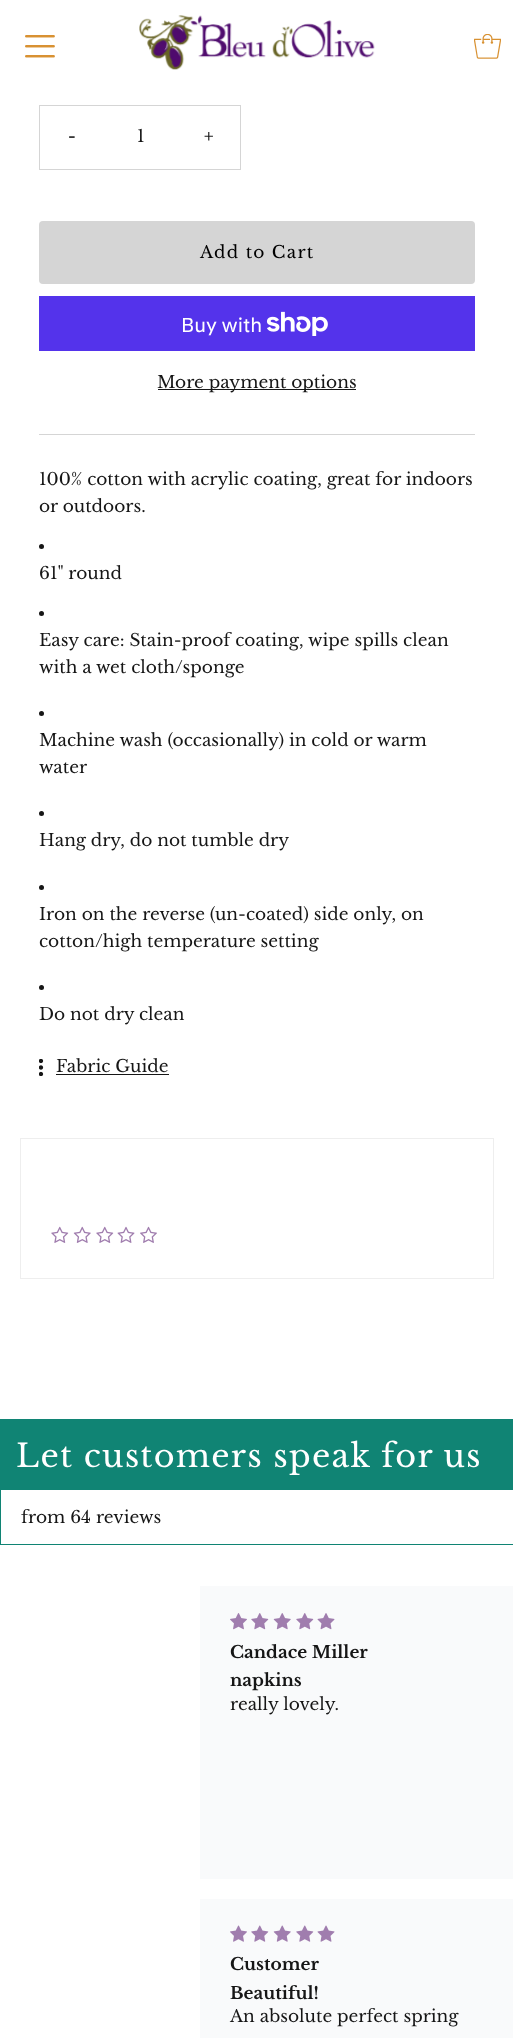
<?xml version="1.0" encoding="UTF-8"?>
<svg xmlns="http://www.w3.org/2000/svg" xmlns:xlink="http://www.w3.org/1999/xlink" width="513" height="2038">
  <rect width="100%" height="100%" fill="#ffffff" />
  <image x="25" y="35" width="30" height="23" xlink:href="image1.png" />
  <image x="139" y="15" width="236" height="55" xlink:href="image2.png" />
  <image x="474" y="34" width="27" height="25" xlink:href="image3.png" />
  <rect x="39.5" y="105.5" width="201" height="64" fill="none" stroke="#d5d5d5" />
  <rect x="39" y="434" width="436" height="1" fill="#d5d5d5" />
  <rect x="39" y="221" width="436" height="63" rx="4" fill="#d5d5d5" />
  <rect x="39" y="296" width="436" height="55" fill="#5433eb" />
  <image x="266" y="311" width="62" height="25" xlink:href="image4.png" />
  <rect x="158" y="389" width="198" height="1" fill="#161616" />
  <circle cx="41.5" cy="546.5" r="2.5" fill="#161616" />
  <circle cx="41.5" cy="613.5" r="2.5" fill="#161616" />
  <circle cx="41.5" cy="713.5" r="2.5" fill="#161616" />
  <circle cx="41.5" cy="813.5" r="2.5" fill="#161616" />
  <circle cx="41.5" cy="887.5" r="2.5" fill="#161616" />
  <circle cx="41.5" cy="987.5" r="2.5" fill="#161616" />
  <image x="39" y="1059" width="5" height="17" xlink:href="image5.png" />
  <rect x="56" y="1074" width="113" height="1" fill="#161616" />
  <rect x="20.5" y="1138.5" width="473" height="140" fill="none" stroke="#eeeeee" />
  <image x="51" y="1226" width="18" height="17" xlink:href="image6.png" />
  <image x="73" y="1226" width="18" height="17" xlink:href="image7.png" />
  <image x="96" y="1226" width="18" height="17" xlink:href="image6.png" />
  <image x="117" y="1226" width="18" height="17" xlink:href="image8.png" />
  <image x="140" y="1226" width="17" height="17" xlink:href="image9.png" />
  <rect x="0.5" y="1419.5" width="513" height="125" fill="none" stroke="#108474" />
  <rect x="1" y="1420" width="512" height="70" fill="#108474" />
  <rect x="200" y="1586" width="313" height="293" fill="#f9fafb" />
  <image x="230" y="1613" width="17" height="17" xlink:href="image10.png" />
  <image x="251" y="1613" width="18" height="17" xlink:href="image11.png" />
  <image x="273" y="1613" width="18" height="17" xlink:href="image12.png" />
  <image x="296" y="1613" width="18" height="17" xlink:href="image11.png" />
  <image x="317" y="1613" width="18" height="17" xlink:href="image13.png" />
  <rect x="200" y="1899" width="313" height="139" fill="#f9fafb" />
  <image x="230" y="1925" width="17" height="17" xlink:href="image14.png" />
  <image x="251" y="1925" width="18" height="17" xlink:href="image15.png" />
  <image x="273" y="1925" width="18" height="17" xlink:href="image16.png" />
  <image x="296" y="1925" width="18" height="17" xlink:href="image15.png" />
  <image x="317" y="1925" width="18" height="17" xlink:href="image17.png" />
  <text x="68" y="142" style="font-family: Libre Baskerville; font-size: 17px; font-weight: bold; fill: #161616">-</text>
  <text x="137" y="142" style="font-family: Libre Baskerville; font-size: 17px; fill: #161616">1</text>
  <text x="204" y="142" style="font-family: Libre Baskerville; font-size: 17px; font-weight: bold; fill: #161616">+</text>
  <text x="200" y="258" style="font-family: Libre Baskerville; font-size: 17px; letter-spacing: 1.25px; fill: #000000">Add to Cart</text>
  <text x="181" y="332" style="font-family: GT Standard; font-size: 20px; fill: #ffffff">Buy with</text>
  <text x="157" y="388" style="font-family: Libre Baskerville; font-size: 17px; fill: #161616">More payment options</text>
  <text x="39" y="485" style="font-family: Libre Baskerville; font-size: 17px; fill: #161616">100% cotton with acrylic coating, great for indoors</text>
  <text x="39" y="512" style="font-family: Libre Baskerville; font-size: 17px; fill: #161616">or outdoors.</text>
  <text x="39" y="579" style="font-family: Libre Baskerville; font-size: 17px; fill: #161616">61" round</text>
  <text x="39" y="646" style="font-family: Libre Baskerville; font-size: 17px; fill: #161616">Easy care: Stain-proof coating, wipe spills clean</text>
  <text x="39" y="673" style="font-family: Libre Baskerville; font-size: 17px; fill: #161616">with a wet cloth/sponge</text>
  <text x="39" y="746" style="font-family: Libre Baskerville; font-size: 17px; fill: #161616">Machine wash (occasionally) in cold or warm</text>
  <text x="39" y="773" style="font-family: Libre Baskerville; font-size: 17px; fill: #161616">water</text>
  <text x="39" y="846" style="font-family: Libre Baskerville; font-size: 17px; fill: #161616">Hang dry, do not tumble dry</text>
  <text x="39" y="920" style="font-family: Libre Baskerville; font-size: 17px; fill: #161616">Iron on the reverse (un-coated) side only, on</text>
  <text x="39" y="947" style="font-family: Libre Baskerville; font-size: 17px; fill: #161616">cotton/high temperature setting</text>
  <text x="39" y="1020" style="font-family: Libre Baskerville; font-size: 17px; fill: #161616">Do not dry clean</text>
  <text x="56" y="1072" style="font-family: Libre Baskerville; font-size: 17px; fill: #161616">Fabric Guide</text>
  <text x="16" y="1467" style="font-family: Libre Baskerville; font-size: 31.9px; letter-spacing: 1.25px; fill: #ffffff">Let customers speak for us</text>
  <text x="21" y="1523" style="font-family: Libre Baskerville; font-size: 17px; fill: #161616">from 64 reviews</text>
  <text x="230" y="1658" style="font-family: Libre Baskerville; font-size: 17px; font-weight: bold; fill: #161616">Candace Miller</text>
  <text x="230" y="1686" style="font-family: Libre Baskerville; font-size: 17px; font-weight: bold; fill: #161616">napkins</text>
  <text x="230" y="1710" style="font-family: Libre Baskerville; font-size: 17px; fill: #161616">really lovely.</text>
  <text x="230" y="1970" style="font-family: Libre Baskerville; font-size: 17px; font-weight: bold; fill: #161616">Customer</text>
  <text x="230" y="1999" style="font-family: Libre Baskerville; font-size: 17px; font-weight: bold; fill: #161616">Beautiful!</text>
  <text x="230" y="2022" style="font-family: Libre Baskerville; font-size: 17px; fill: #161616">An absolute perfect spring</text>
</svg>
